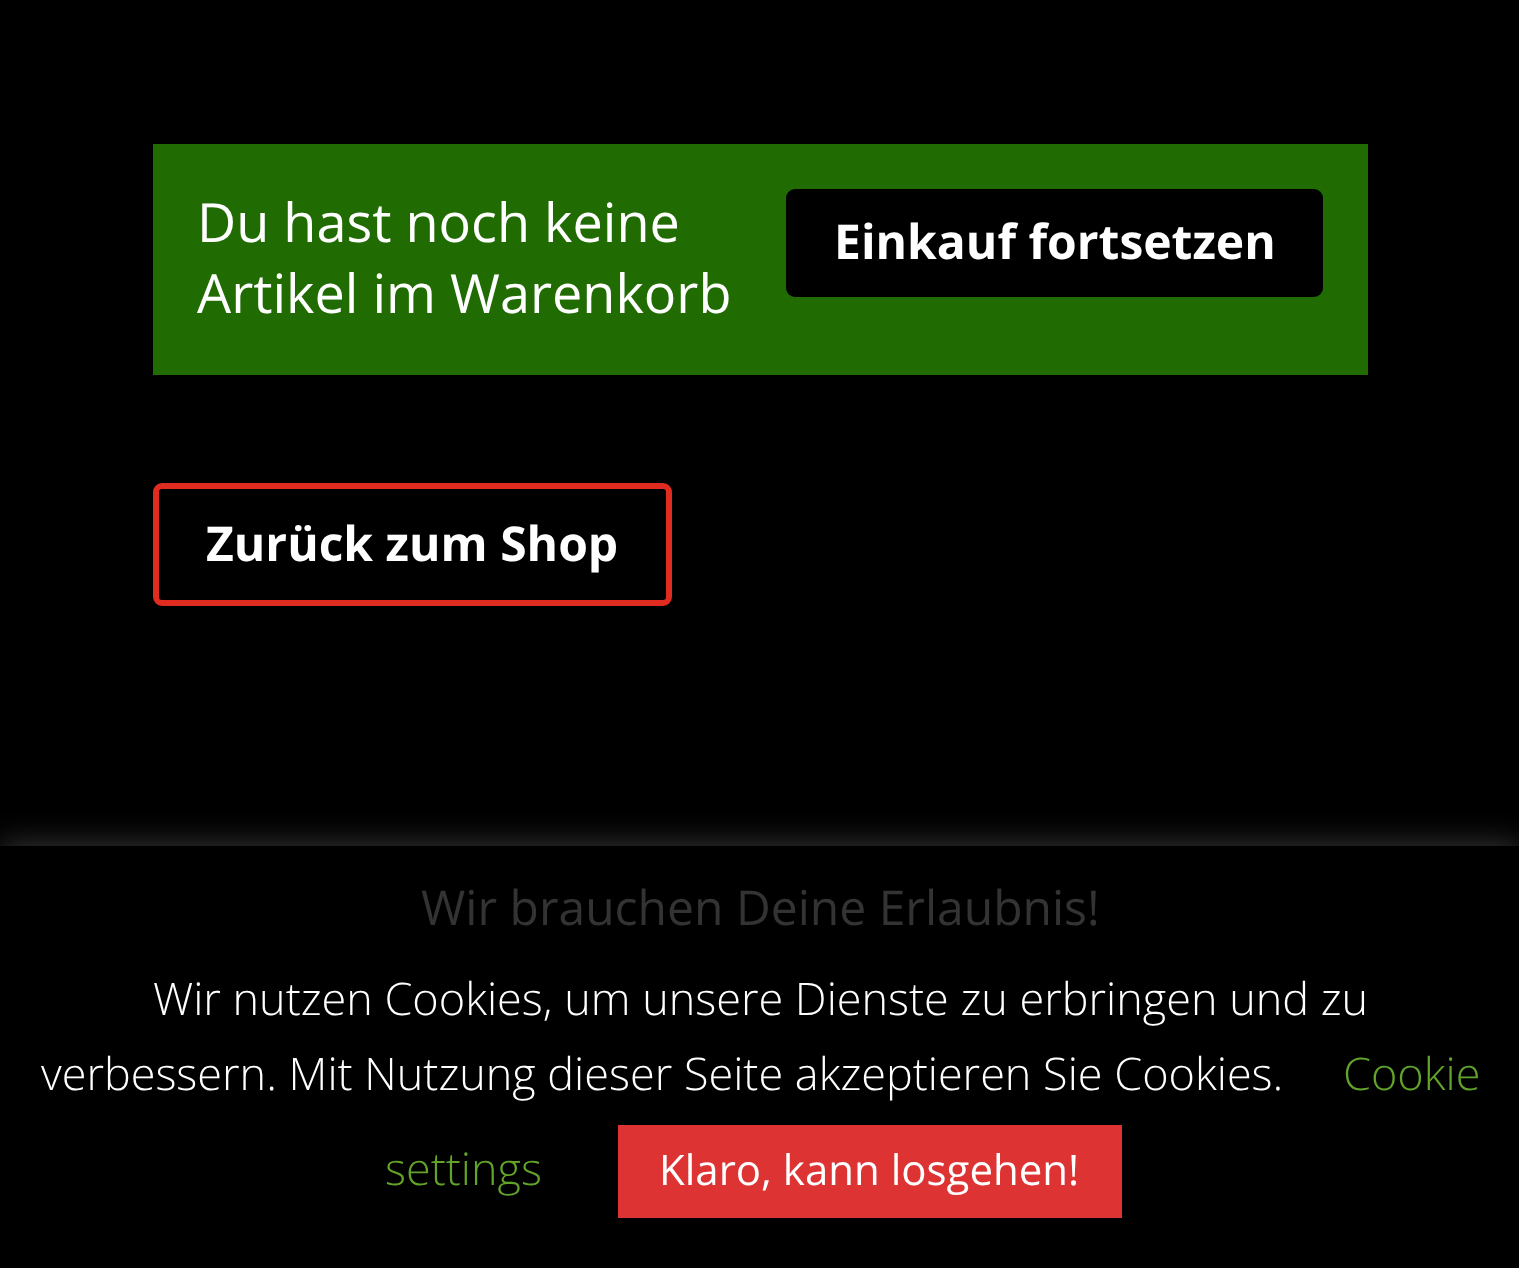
<?xml version="1.0" encoding="UTF-8"?>
<svg xmlns="http://www.w3.org/2000/svg" xmlns:xlink="http://www.w3.org/1999/xlink" width="1519" height="1268">
  <rect width="100%" height="100%" fill="#000000" />
  <rect x="153" y="144" width="1215" height="231" fill="#206c03" />
  <rect x="786" y="189" width="537" height="108" rx="9" fill="#000000" />
  <rect x="156" y="486" width="513" height="117" rx="6" fill="none" stroke="#e02b20" stroke-width="6" />
  <rect y="843" width="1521" height="423" fill="#acabab" fill-opacity="0.3" filter="blur(15px)" />
  <rect y="846" width="1519" height="422" fill="#000000" />
  <rect x="618" y="1125" width="504" height="93" fill="#dd3333" />
  <text x="197" y="242" style="font-family: Open Sans; font-size: 54px; fill: #ffffff">Du hast noch keine</text>
  <text x="834" y="259" style="font-family: Open Sans; font-size: 48px; font-weight: bold; fill: #ffffff">Einkauf fortsetzen</text>
  <text x="197" y="313" style="font-family: Open Sans; font-size: 54px; fill: #ffffff">Artikel im Warenkorb</text>
  <text x="206" y="561" style="font-family: Open Sans; font-size: 48px; font-weight: bold; fill: #ffffff">Zurück zum Shop</text>
  <text x="421" y="925" style="font-family: Open Sans; font-size: 48px; fill: #333333">Wir brauchen Deine Erlaubnis!</text>
  <text x="153" y="1015" style="font-family: Open Sans; font-size: 45px; font-weight: 300; fill: #ffffff">Wir nutzen Cookies, um unsere Dienste zu erbringen und zu</text>
  <text x="41" y="1090" style="font-family: Open Sans; font-size: 45px; font-weight: 300; fill: #ffffff">verbessern. Mit Nutzung dieser Seite akzeptieren Sie Cookies.</text>
  <text x="1343" y="1090" style="font-family: Open Sans; font-size: 45px; font-weight: 300; fill: #62a329">Cookie</text>
  <text x="385" y="1185" style="font-family: Open Sans; font-size: 45px; font-weight: 300; fill: #62a329">settings</text>
  <text x="659" y="1185" style="font-family: Open Sans; font-size: 42px; fill: #ffffff">Klaro, kann losgehen!</text>
</svg>
